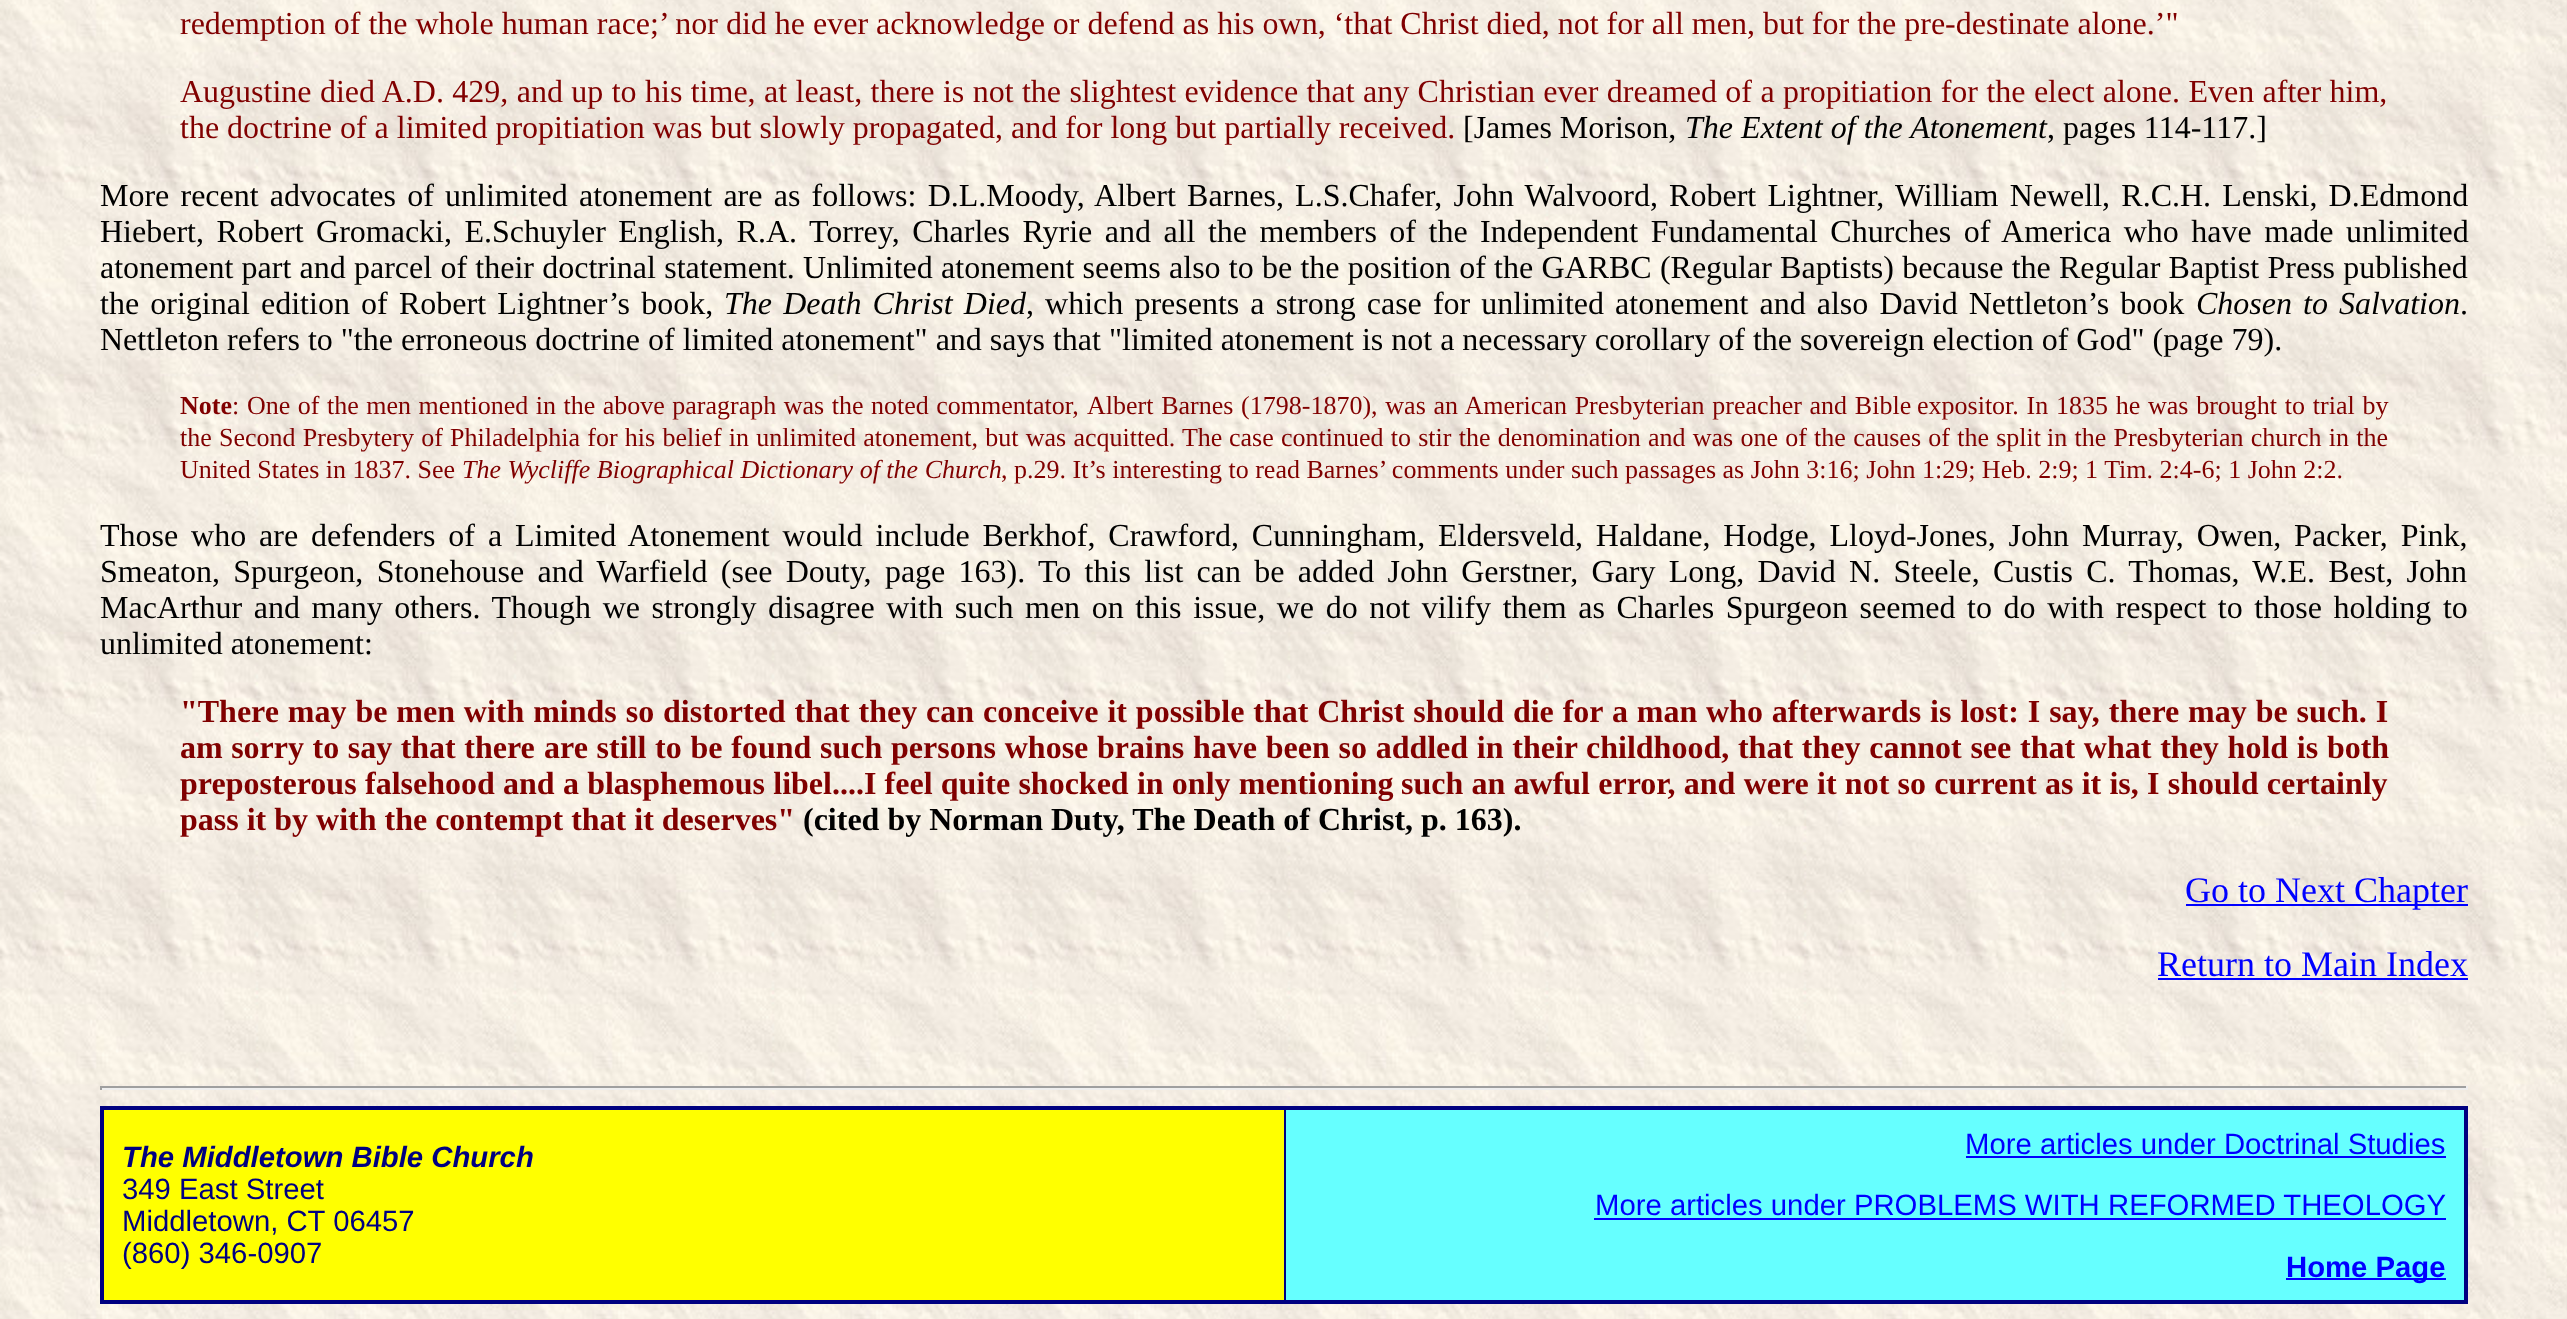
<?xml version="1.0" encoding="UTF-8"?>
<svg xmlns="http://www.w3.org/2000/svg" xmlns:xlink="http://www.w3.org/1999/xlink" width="2567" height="1319">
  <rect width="100%" height="100%" fill="#ffffff" />
  <image x="0" y="0" width="2567" height="1319" xlink:href="image1.png" />
  <rect x="2186" y="904" width="282" height="2" fill="#0000ff" />
  <rect x="2158" y="978" width="310" height="2" fill="#0000ff" />
  <rect x="100" y="1086" width="2368" height="2" fill="#9f9f9f" />
  <rect x="2466" y="1086" width="2" height="4" fill="#eeeeee" />
  <rect x="100" y="1088" width="2368" height="2" fill="#eeeeee" />
  <rect x="100" y="1086" width="2" height="4" fill="#9f9f9f" />
  <rect x="1284" y="1108" width="2" height="196" fill="#000080" />
  <rect x="100" y="1106" width="2368" height="4" fill="#000080" />
  <rect x="2464" y="1106" width="4" height="198" fill="#000080" />
  <rect x="100" y="1300" width="2368" height="4" fill="#000080" />
  <rect x="100" y="1106" width="4" height="198" fill="#000080" />
  <rect x="104" y="1110" width="1180" height="190" fill="#ffff00" />
  <rect x="1286" y="1110" width="1178" height="190" fill="#66ffff" />
  <rect x="1966" y="1156" width="480" height="2" fill="#0000ff" />
  <rect x="1594" y="1218" width="852" height="2" fill="#0000ff" />
  <rect x="2286" y="1278" width="160" height="2" fill="#0000ff" />
  <text x="180" y="34" style="font-family: Liberation Serif; font-size: 32px; fill: #800000">redemption of the whole human race;’ nor did he ever acknowledge or defend as his own, ‘that Christ died, not for all men, but for the pre-destinate alone.’"</text>
  <text x="180" y="102" word-spacing="0.4" style="font-family: Liberation Serif; font-size: 32px; fill: #800000">Augustine died A.D. 429, and up to his time, at least, there is not the slightest evidence that any Christian ever dreamed of a propitiation for the elect alone. Even after him,</text>
  <text x="180" y="138" style="font-family: Liberation Serif; font-size: 32px; fill: #800000">the doctrine of a limited propitiation was but slowly propagated, and for long but partially received.</text>
  <text x="1463" y="138" style="font-family: Liberation Serif; font-size: 32px; fill: #000000">[James Morison,</text>
  <text x="1685" y="138" style="font-family: Liberation Serif; font-size: 32px; font-style: italic; fill: #000000">The Extent of the Atonement</text>
  <text x="2047" y="138" style="font-family: Liberation Serif; font-size: 32px; fill: #000000">, pages 114-117.]</text>
  <text x="100" y="206" word-spacing="3.2" style="font-family: Liberation Serif; font-size: 32px; fill: #000000">More recent advocates of unlimited atonement are as follows: D.L.Moody, Albert Barnes, L.S.Chafer, John Walvoord, Robert Lightner, William Newell, R.C.H. Lenski, D.Edmond</text>
  <text x="100" y="242" word-spacing="4.5" style="font-family: Liberation Serif; font-size: 32px; fill: #000000">Hiebert, Robert Gromacki, E.Schuyler English, R.A. Torrey, Charles Ryrie and all the members of the Independent Fundamental Churches of America who have made unlimited</text>
  <text x="100" y="278" word-spacing="0.25" style="font-family: Liberation Serif; font-size: 32px; fill: #000000">atonement part and parcel of their doctrinal statement. Unlimited atonement seems also to be the position of the GARBC (Regular Baptists) because the Regular Baptist Press published</text>
  <text x="100" y="314" word-spacing="3.2" style="font-family: Liberation Serif; font-size: 32px; fill: #000000">the original edition of Robert Lightner’s book,</text>
  <text x="724" y="314" word-spacing="3.2" style="font-family: Liberation Serif; font-size: 32px; font-style: italic; fill: #000000">The Death Christ Died</text>
  <text x="1026" y="314" word-spacing="3.1" style="font-family: Liberation Serif; font-size: 32px; fill: #000000">, which presents a strong case for unlimited atonement and also David Nettleton’s book</text>
  <text x="2196" y="314" word-spacing="3.1" style="font-family: Liberation Serif; font-size: 32px; font-style: italic; fill: #000000">Chosen to Salvation</text>
  <text x="2460" y="314" style="font-family: Liberation Serif; font-size: 32px; fill: #000000">.</text>
  <text x="100" y="350" style="font-family: Liberation Serif; font-size: 32px; fill: #000000">Nettleton refers to "the erroneous doctrine of limited atonement" and says that "limited atonement is not a necessary corollary of the sovereign election of God" (page 79).</text>
  <text x="180" y="414" style="font-family: Liberation Serif; font-size: 26px; font-weight: bold; fill: #800000">Note</text>
  <text x="232" y="414" style="font-family: Liberation Serif; font-size: 26px; fill: #800000">:</text>
  <text x="247" y="414" word-spacing="1" style="font-family: Liberation Serif; font-size: 26px; fill: #800000">One of the men mentioned in the above paragraph was the noted commentator,</text>
  <text x="1087" y="414" word-spacing="1.25" style="font-family: Liberation Serif; font-size: 26px; fill: #800000">Albert Barnes (1798-1870), was an American Presbyterian preacher and Bible</text>
  <text x="1917" y="414" word-spacing="1.25" style="font-family: Liberation Serif; font-size: 26px; fill: #800000">expositor. In 1835 he was brought to trial by</text>
  <text x="180" y="446" word-spacing="0.75" style="font-family: Liberation Serif; font-size: 26px; fill: #800000">the Second Presbytery of</text>
  <text x="450" y="446" word-spacing="0.75" style="font-family: Liberation Serif; font-size: 26px; fill: #800000">Philadelphia for his belief in unlimited atonement, but was acquitted. The</text>
  <text x="1229" y="446" word-spacing="0.75" style="font-family: Liberation Serif; font-size: 26px; fill: #800000">case continued to stir the denomination and was one of the causes of the split</text>
  <text x="2047" y="446" word-spacing="0.75" style="font-family: Liberation Serif; font-size: 26px; fill: #800000">in the Presbyterian church in the</text>
  <text x="180" y="478" style="font-family: Liberation Serif; font-size: 26px; fill: #800000">United States in 1837. See</text>
  <text x="462" y="478" style="font-family: Liberation Serif; font-size: 26px; font-style: italic; fill: #800000">The Wycliffe Biographical Dictionary of the Church</text>
  <text x="1001" y="478" style="font-family: Liberation Serif; font-size: 26px; fill: #800000">, p.29. It’s interesting to read Barnes’ comments under such passages as John 3:16; John 1:29; Heb. 2:9; 1 Tim. 2:4-6; 1 John 2:2.</text>
  <text x="100" y="546" word-spacing="4.9" style="font-family: Liberation Serif; font-size: 32px; fill: #000000">Those who are defenders of a Limited Atonement would include Berkhof, Crawford, Cunningham, Eldersveld, Haldane, Hodge, Lloyd-Jones, John Murray, Owen, Packer, Pink,</text>
  <text x="100" y="582" word-spacing="5.3" style="font-family: Liberation Serif; font-size: 32px; fill: #000000">Smeaton, Spurgeon, Stonehouse and Warfield (see Douty, page 163). To this list can be added John Gerstner, Gary Long, David N. Steele, Custis C. Thomas, W.E. Best, John</text>
  <text x="100" y="618" word-spacing="3.6" style="font-family: Liberation Serif; font-size: 32px; fill: #000000">MacArthur and many others. Though we strongly disagree with such men on this issue, we do not vilify them as Charles Spurgeon seemed to do with respect to those holding to</text>
  <text x="100" y="654" style="font-family: Liberation Serif; font-size: 32px; fill: #000000">unlimited atonement:</text>
  <text x="180" y="722" word-spacing="0.9" style="font-family: Liberation Serif; font-size: 32px; font-weight: bold; fill: #800000">"There may be men with minds so</text>
  <text x="663" y="722" word-spacing="0.9" style="font-family: Liberation Serif; font-size: 32px; font-weight: bold; fill: #800000">distorted that they can conceive it possible that Christ should die for a man</text>
  <text x="1706" y="722" word-spacing="0.9" style="font-family: Liberation Serif; font-size: 32px; font-weight: bold; fill: #800000">who afterwards is lost: I say, there may be such. I</text>
  <text x="180" y="758" word-spacing="0.5" style="font-family: Liberation Serif; font-size: 32px; font-weight: bold; fill: #800000">am sorry to say that there</text>
  <text x="544" y="758" word-spacing="0.75" style="font-family: Liberation Serif; font-size: 32px; font-weight: bold; fill: #800000">are still to be found such persons whose brains have been so addled in their</text>
  <text x="1586" y="758" word-spacing="0.75" style="font-family: Liberation Serif; font-size: 32px; font-weight: bold; fill: #800000">childhood, that they cannot see that what they hold is both</text>
  <text x="180" y="794" style="font-family: Liberation Serif; font-size: 32px; font-weight: bold; fill: #800000">preposterous</text>
  <text x="365" y="794" word-spacing="0.25" style="font-family: Liberation Serif; font-size: 32px; font-weight: bold; fill: #800000">falsehood and a blasphemous libel....I feel quite shocked in only mentioning</text>
  <text x="1401" y="794" word-spacing="0.25" style="font-family: Liberation Serif; font-size: 32px; font-weight: bold; fill: #800000">such an awful error, and were it not so current as it is, I should certainly</text>
  <text x="180" y="830" style="font-family: Liberation Serif; font-size: 32px; font-weight: bold; fill: #800000">pass it by with the contempt that it deserves"</text>
  <text x="803" y="830" style="font-family: Liberation Serif; font-size: 32px; font-weight: bold; fill: #000000">(cited by Norman Duty, The Death of Christ, p. 163).</text>
  <text x="2185" y="902" style="font-family: Liberation Serif; font-size: 36px; fill: #0000ff">Go to Next Chapter</text>
  <text x="2157" y="976" style="font-family: Liberation Serif; font-size: 36px; fill: #0000ff">Return to Main Index</text>
  <text x="122" y="1167" style="font-family: Liberation Sans; font-size: 29.3px; font-weight: bold; font-style: italic; fill: #000080">The Middletown Bible Church</text>
  <text x="122" y="1199" style="font-family: Liberation Sans; font-size: 29.3px; fill: #000080">349 East Street</text>
  <text x="122" y="1231" style="font-family: Liberation Sans; font-size: 29.3px; fill: #000080">Middletown, CT 06457</text>
  <text x="122" y="1263" style="font-family: Liberation Sans; font-size: 29.3px; fill: #000080">(860) 346-0907</text>
  <text x="1965" y="1154" style="font-family: Liberation Sans; font-size: 29.3px; fill: #0000ff">More articles under Doctrinal Studies</text>
  <text x="1595" y="1215" style="font-family: Liberation Sans; font-size: 29.3px; fill: #0000ff">More articles under PROBLEMS WITH</text>
  <text x="2108" y="1215" style="font-family: Liberation Sans; font-size: 29.3px; fill: #0000ff">REFORMED THEOLOGY</text>
  <text x="2286" y="1277" style="font-family: Liberation Sans; font-size: 29.3px; font-weight: bold; fill: #0000ff">Home Page</text>
</svg>
